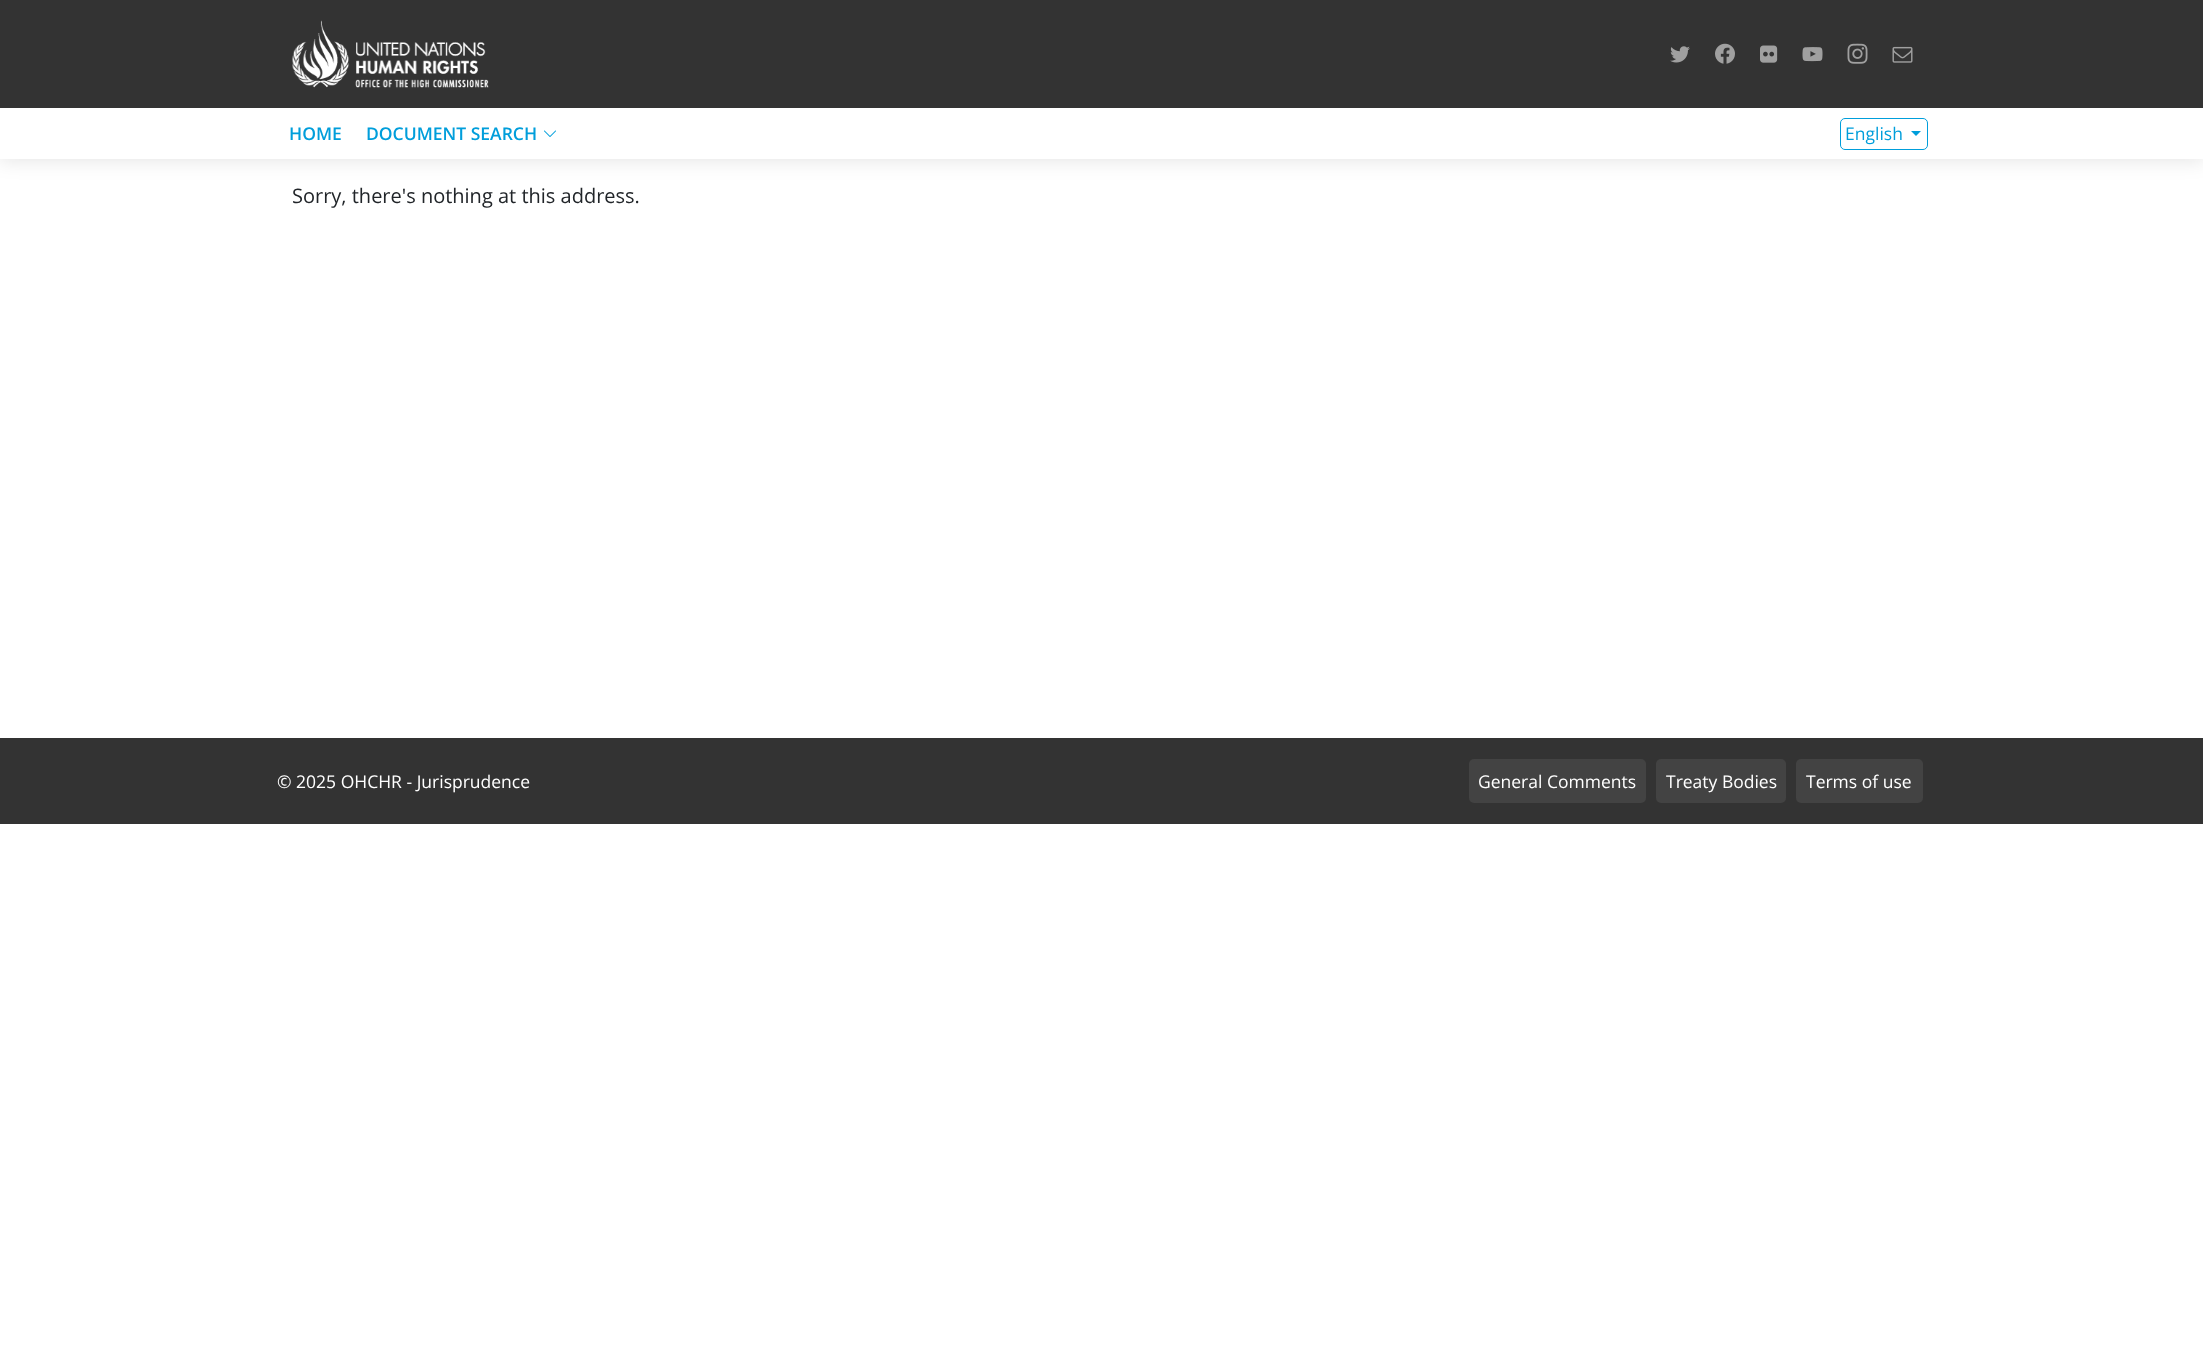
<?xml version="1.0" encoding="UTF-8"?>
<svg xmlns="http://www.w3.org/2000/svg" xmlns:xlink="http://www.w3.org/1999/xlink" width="2203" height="1352">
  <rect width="100%" height="100%" fill="#ffffff" />
  <rect y="3" width="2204" height="158" fill="#000000" fill-opacity="0.1" filter="blur(9.5px)" />
  <rect width="2203" height="108" fill="#333333" />
  <image x="292" y="20" width="197" height="68" xlink:href="image1.png" />
  <image x="1670" y="46" width="20" height="17" xlink:href="image2.png" />
  <image x="1715" y="43" width="20" height="21" xlink:href="image3.png" />
  <image x="1760" y="45" width="18" height="18" xlink:href="image4.png" />
  <image x="1802" y="47" width="21" height="15" xlink:href="image5.png" />
  <image x="1847" y="43" width="21" height="21" xlink:href="image6.png" />
  <image x="1892" y="46" width="21" height="17" xlink:href="image7.png" />
  <rect y="108" width="2203" height="51" fill="#ffffff" />
  <image x="544" y="130" width="12" height="7" xlink:href="image8.png" />
  <rect x="1840.5" y="118.5" width="87" height="31" rx="4.5" fill="none" stroke="#009edb" />
  <path d="M 1911 131 h 10 l -5 5 z" fill="#009edb" />
  <rect y="738" width="2203" height="86" fill="#333333" />
  <rect x="1469" y="759" width="177" height="44" rx="5" fill="#434343" />
  <rect x="1656" y="759" width="130" height="44" rx="5" fill="#434343" />
  <rect x="1796" y="759" width="127" height="44" rx="5" fill="#434343" />
  <text x="289" y="140" style="font-family: Open Sans; font-size: 17.5px; font-weight: 600; fill: #009edb">HOME</text>
  <text x="366" y="140" style="font-family: Open Sans; font-size: 17.5px; font-weight: 600; fill: #009edb">DOCUMENT SEARCH</text>
  <text x="1845" y="140" style="font-family: Open Sans; font-size: 17.5px; fill: #009edb">English</text>
  <text x="292" y="203" style="font-family: Open Sans; font-size: 20px; fill: #212529">Sorry, there's nothing at this address.</text>
  <text x="277" y="788" style="font-family: Open Sans; font-size: 17.5px; fill: #ffffff">© 2025 OHCHR - Jurisprudence</text>
  <text x="1478" y="788" style="font-family: Open Sans; font-size: 17.5px; fill: #ffffff">General Comments</text>
  <text x="1666" y="788" style="font-family: Open Sans; font-size: 17.5px; fill: #ffffff">Treaty Bodies</text>
  <text x="1806" y="788" style="font-family: Open Sans; font-size: 17.5px; fill: #ffffff">Terms of use</text>
</svg>
